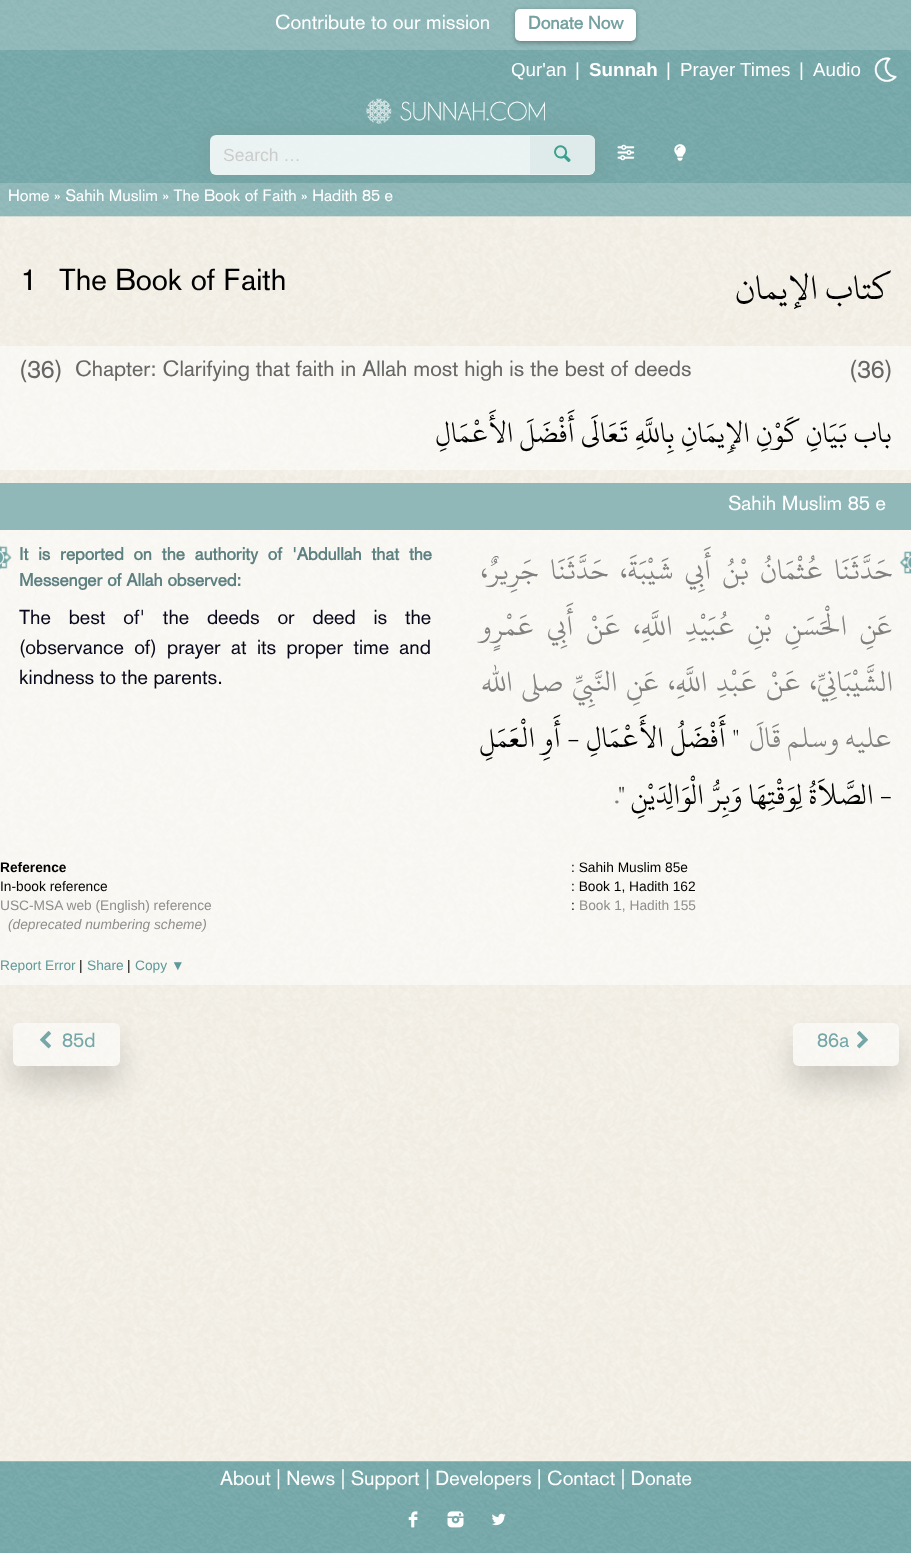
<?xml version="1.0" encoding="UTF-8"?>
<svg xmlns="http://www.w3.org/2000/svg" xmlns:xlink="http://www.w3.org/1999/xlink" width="911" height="1553">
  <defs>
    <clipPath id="clip1"><path d="M 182 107 h 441 v 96 h -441 z m 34 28 h 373 c 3.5 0 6 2.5 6 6 v 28 c 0 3.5 -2.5 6 -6 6 h -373 c -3.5 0 -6 -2.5 -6 -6 v -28 c 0 -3.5 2.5 -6 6 -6 z" clip-rule="evenodd" /></clipPath>
    <clipPath id="clip2"><path d="M 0 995 h 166 v 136 h -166 z m 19 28 h 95 c 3.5 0 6 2.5 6 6 v 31 c 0 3.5 -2.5 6 -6 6 h -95 c -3.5 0 -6 -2.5 -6 -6 v -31 c 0 -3.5 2.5 -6 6 -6 z" clip-rule="evenodd" /></clipPath>
    <clipPath id="clip3"><path d="M 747 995 h 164 v 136 h -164 z m 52 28 h 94 c 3.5 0 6 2.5 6 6 v 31 c 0 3.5 -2.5 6 -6 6 h -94 c -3.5 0 -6 -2.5 -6 -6 v -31 c 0 -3.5 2.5 -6 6 -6 z" clip-rule="evenodd" /></clipPath>
  </defs>
  <rect width="100%" height="100%" fill="#ffffff" />
  <image x="0" y="216" width="911" height="1246" xlink:href="image1.png" />
  <image x="0" y="0" width="911" height="217" xlink:href="image2.png" />
  <rect width="911" height="50" fill="#fbfaf8" fill-opacity="0.2" />
  <rect x="515" y="10" width="121" height="33" rx="5" fill="#000000" fill-opacity="0.3" filter="blur(2px)" />
  <rect x="515" y="9" width="121" height="32" rx="5" fill="#ffffff" />
  <image x="874" y="57" width="23" height="25" xlink:href="image3.png" />
  <image x="366" y="98" width="179" height="26" xlink:href="image4.png" />
  <image x="617" y="144" width="18" height="17" xlink:href="image5.png" />
  <g clip-path="url(#clip1)">
    <rect x="206" y="131" width="393" height="48" rx="10" fill="#75a1a1" filter="blur(7.5px)" />
  </g>
  <rect x="210" y="135" width="385" height="40" rx="6" fill="#ffffff" fill-opacity="0.85" />
  <path d="M 530 136 h 59 c 3.5 0 6 2.5 6 6 v 26 c 0 3.5 -2.5 6 -6 6 h -59 z" fill="#deebea" />
  <image x="674" y="144" width="12" height="17" xlink:href="image6.png" />
  <rect y="183" width="911" height="33" fill="#fbfaf8" fill-opacity="0.2" />
  <rect y="346" width="911" height="124" fill="#ffffff" fill-opacity="0.5" />
  <rect y="530" width="911" height="455" fill="#ffffff" fill-opacity="0.5" />
  <rect y="483" width="911" height="47" fill="#90b8b9" />
  <image x="0" y="545" width="12" height="25" xlink:href="image7.png" />
  <image x="900" y="551" width="11" height="23" xlink:href="image8.png" />
  <g clip-path="url(#clip2)">
    <rect x="13" y="1041" width="107" height="44" rx="6" fill="#000000" fill-opacity="0.16" filter="blur(15px)" />
  </g>
  <rect x="13" y="1023" width="107" height="43" rx="6" fill="#ffffff" fill-opacity="0.5" />
  <g clip-path="url(#clip3)">
    <rect x="793" y="1041" width="106" height="44" rx="6" fill="#000000" fill-opacity="0.16" filter="blur(15px)" />
  </g>
  <rect x="793" y="1023" width="106" height="43" rx="6" fill="#ffffff" fill-opacity="0.5" />
  <image x="0" y="1461" width="911" height="92" xlink:href="image9.png" />
  <image x="408" y="1511" width="10" height="17" xlink:href="image10.png" />
  <image x="447" y="1511" width="17" height="17" xlink:href="image11.png" />
  <image x="491" y="1513" width="15" height="13" xlink:href="image12.png" />
  <text x="275" y="29" style="font-family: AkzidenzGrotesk; font-size: 20px; fill: #ffffff">Contribute to our mission</text>
  <text x="528" y="29" style="font-family: AkzidenzGrotesk; font-size: 18px; font-weight: bold; fill: #75a1a1">Donate Now</text>
  <text x="511" y="76" style="font-family: Liberation Sans; font-size: 18.75px; fill: #ffffff">Qur'an</text>
  <text x="575" y="76" style="font-family: Liberation Sans; font-size: 18.75px; fill: #ffffff">|</text>
  <text x="589" y="76" style="font-family: Liberation Sans; font-size: 18.75px; font-weight: bold; fill: #ffffff">Sunnah</text>
  <text x="666" y="76" style="font-family: Liberation Sans; font-size: 18.75px; fill: #ffffff">|</text>
  <text x="680" y="76" style="font-family: Liberation Sans; font-size: 18.75px; fill: #ffffff">Prayer Times</text>
  <text x="799" y="76" style="font-family: Liberation Sans; font-size: 18.75px; fill: #ffffff">|</text>
  <text x="813" y="76" style="font-family: Liberation Sans; font-size: 18.75px; fill: #ffffff">Audio</text>
  <text x="223" y="161" style="font-family: Liberation Sans; font-size: 17.5px; fill: #cccccc">Search …</text>
  <text x="554" y="161" style="font-family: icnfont; font-size: 21px; fill: #3ba08f">l</text>
  <text x="8" y="201" style="font-family: AkzidenzGrotesk; font-size: 16.25px; fill: #ffffff">Home » Sahih Muslim » The Book of Faith » Hadith 85 e</text>
  <text x="20" y="290" style="font-family: AkzidenzGrotesk; font-size: 30px; fill: #000000">1</text>
  <text x="59" y="290" style="font-family: AkzidenzGrotesk; font-size: 30px; fill: #000000">The Book of Faith</text>
  <text x="891" y="299" style="font-family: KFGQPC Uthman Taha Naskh; font-size: 37.5px; direction: rtl; fill: #000000">كتاب الإيمان</text>
  <text x="19" y="378" style="font-family: AkzidenzGrotesk; font-size: 25px; fill: #666666">(36)</text>
  <text x="75" y="376" style="font-family: AkzidenzGrotesk; font-size: 21.7px; fill: #666666">Chapter: Clarifying that faith in Allah most high is the best of deeds</text>
  <text x="849" y="378" style="font-family: AkzidenzGrotesk; font-size: 25px; fill: #666666">(36)</text>
  <text x="892" y="442" style="font-family: KFGQPC Uthman Taha Naskh; font-size: 31.25px; direction: rtl; fill: #000000">باب بَيَانِ كَوْنِ الإِيمَانِ بِاللَّهِ تَعَالَى أَفْضَلَ الأَعْمَالِ </text>
  <text x="728" y="510" style="font-family: AkzidenzGrotesk; font-size: 20px; fill: #ffffff">Sahih Muslim 85 e</text>
  <text x="19" y="560" word-spacing="5" style="font-family: AkzidenzGrotesk; font-size: 17.5px; font-weight: bold; fill: #5d8080">It is reported on the authority of 'Abdullah that the</text>
  <text x="19" y="586" style="font-family: AkzidenzGrotesk; font-size: 17.5px; font-weight: bold; fill: #5d8080">Messenger of Allah observed:</text>
  <text x="19" y="624" word-spacing="12.25" style="font-family: AkzidenzGrotesk; font-size: 20px; fill: #08081a">The best of' the deeds or deed is the</text>
  <text x="19" y="654" word-spacing="4.75" style="font-family: AkzidenzGrotesk; font-size: 20px; fill: #08081a">(observance of) prayer at its proper time and</text>
  <text x="19" y="684" style="font-family: AkzidenzGrotesk; font-size: 20px; fill: #08081a">kindness to the parents.</text>
  <text x="893" y="579" word-spacing="5.25" style="font-family: KFGQPC Uthman Taha Naskh; font-size: 31.25px; direction: rtl; fill: #808080">حَدَّثَنَا عُثْمَانُ بْنُ أَبِي شَيْبَةَ، حَدَّثَنَا جَرِيرٌ،</text>
  <text x="893" y="635" word-spacing="6.5" style="font-family: KFGQPC Uthman Taha Naskh; font-size: 31.25px; direction: rtl; fill: #808080">عَنِ الْحَسَنِ بْنِ عُبَيْدِ اللَّهِ، عَنْ أَبِي عَمْرٍو</text>
  <text x="893" y="691" word-spacing="2.75" style="font-family: KFGQPC Uthman Taha Naskh; font-size: 31.25px; direction: rtl; fill: #808080">الشَّيْبَانِيِّ، عَنْ عَبْدِ اللَّهِ، عَنِ النَّبِيِّ صلى الله</text>
  <text x="739" y="747" word-spacing="0.5" style="font-family: KFGQPC Uthman Taha Naskh; font-size: 31.25px; direction: rtl; fill: #000000">" أَفْضَلُ الأَعْمَالِ - أَوِ الْعَمَلِ</text>
  <text x="892" y="747" style="font-family: KFGQPC Uthman Taha Naskh; font-size: 31.25px; direction: rtl; fill: #808080">عليه وسلم قَالَ </text>
  <text x="620" y="804" style="font-family: KFGQPC Uthman Taha Naskh; font-size: 31.25px; direction: rtl; fill: #808080"> .</text>
  <text x="892" y="804" style="font-family: KFGQPC Uthman Taha Naskh; font-size: 31.25px; direction: rtl; fill: #000000">- الصَّلاَةُ لِوَقْتِهَا وَبِرُّ الْوَالِدَيْنِ "</text>
  <text x="0" y="872" style="font-family: Liberation Sans; font-size: 13.75px; font-weight: bold; fill: #000000">Reference</text>
  <text x="571" y="872" style="font-family: Liberation Sans; font-size: 13.75px; fill: #000000">: Sahih Muslim 85e</text>
  <text x="0" y="891" style="font-family: Liberation Sans; font-size: 13.75px; fill: #000000">In-book reference</text>
  <text x="571" y="891" style="font-family: Liberation Sans; font-size: 13.75px; fill: #000000">: Book 1, Hadith 162</text>
  <text x="0" y="910" style="font-family: Liberation Sans; font-size: 13.75px; fill: #8e8e8e">USC-MSA web (English) reference</text>
  <text x="571" y="910" style="font-family: Liberation Sans; font-size: 13.75px; fill: #000000">:</text>
  <text x="579" y="910" style="font-family: Liberation Sans; font-size: 13.75px; fill: #8e8e8e">Book 1, Hadith 155</text>
  <text x="8" y="929" style="font-family: Liberation Sans; font-size: 13.75px; font-style: italic; fill: #8e8e8e">(deprecated numbering scheme)</text>
  <text x="0" y="970" style="font-family: Liberation Sans; font-size: 13.75px; fill: #5f9999">Report Error</text>
  <text x="79" y="970" style="font-family: Liberation Sans; font-size: 13.75px; fill: #000000">|</text>
  <text x="87" y="970" style="font-family: Liberation Sans; font-size: 13.75px; fill: #5f9999">Share</text>
  <text x="127" y="970" style="font-family: Liberation Sans; font-size: 13.75px; fill: #000000">|</text>
  <text x="135" y="970" style="font-family: Liberation Sans; font-size: 13.75px; fill: #5f9999">Copy ▼</text>
  <text x="40" y="1047" style="font-family: icnfont; font-size: 19px; fill: #75a7a8">&lt;</text>
  <text x="62" y="1047" style="font-family: AkzidenzGrotesk; font-size: 20px; fill: #75a7a8">85d</text>
  <text x="817" y="1047" style="font-family: AkzidenzGrotesk; font-size: 20px; fill: #75a7a8">86a</text>
  <text x="857" y="1047" style="font-family: icnfont; font-size: 19px; fill: #75a7a8">&gt;</text>
  <text x="220" y="1485" style="font-family: AkzidenzGrotesk; font-size: 20px; fill: #ffffff">About | News | Support | Developers | Contact | Donate</text>
</svg>
